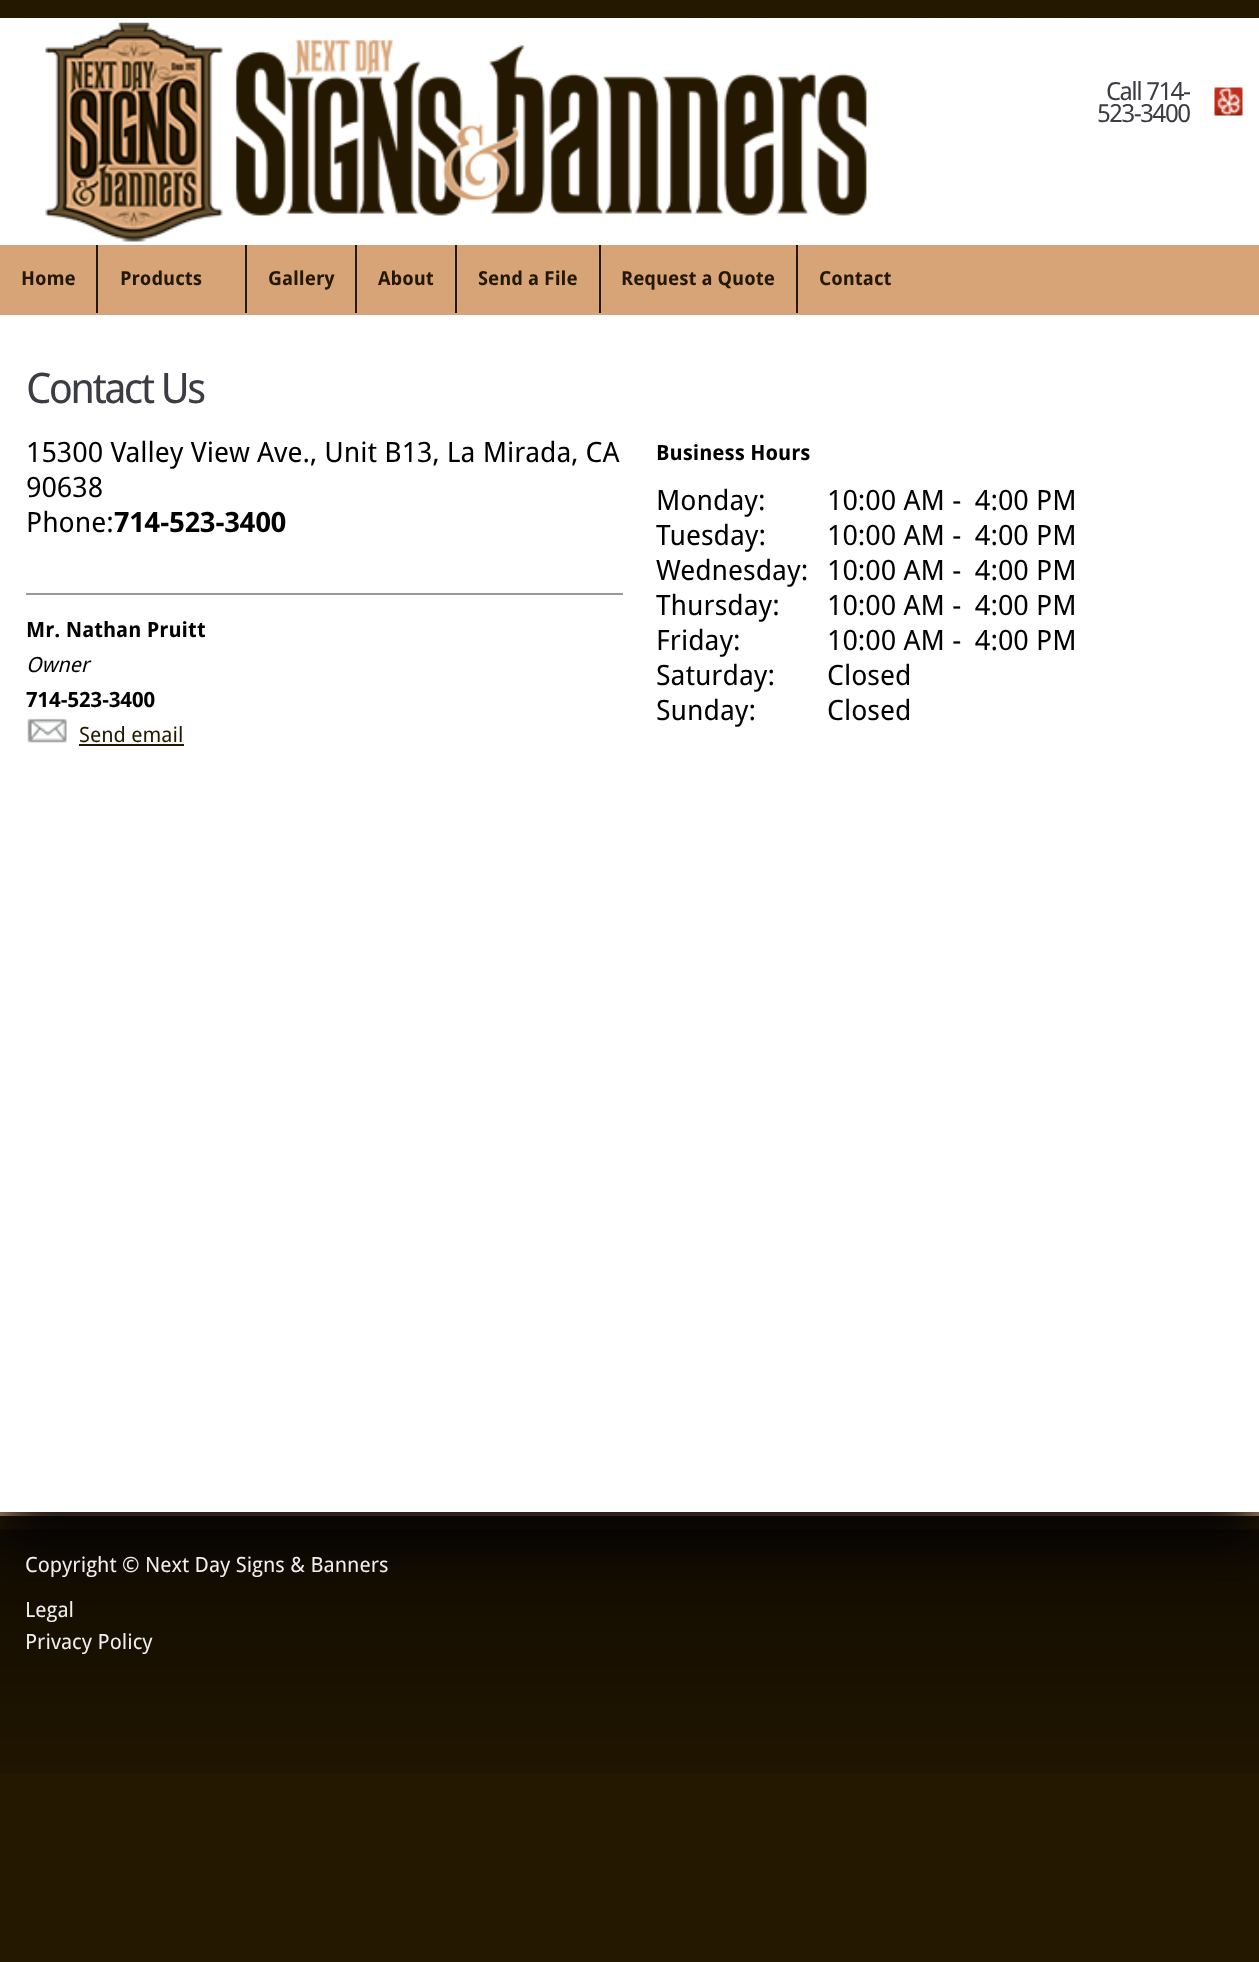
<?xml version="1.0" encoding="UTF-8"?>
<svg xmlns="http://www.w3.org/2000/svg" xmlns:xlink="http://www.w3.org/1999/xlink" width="1259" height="1962">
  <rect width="100%" height="100%" fill="#241800" />
  <image x="0" y="17" width="1259" height="1" xlink:href="image1.png" />
  <rect y="18" width="1259" height="227" fill="#ffffff" />
  <image x="45" y="22" width="822" height="220" xlink:href="image2.png" />
  <image x="1214" y="87" width="29" height="29" xlink:href="image3.png" />
  <image x="0" y="1529" width="1259" height="244" xlink:href="image5.png" />
  <rect y="1512" width="1259" height="4" fill="#d6a477" />
  <rect y="347" width="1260" height="1197" fill="#000005" fill-opacity="0.9" filter="blur(26px)" />
  <rect y="245" width="1259" height="70" fill="#d6a477" />
  <rect x="96" y="245" width="2" height="68" fill="#241800" />
  <rect x="245" y="245" width="2" height="68" fill="#241800" />
  <rect x="355" y="245" width="2" height="68" fill="#241800" />
  <rect x="455" y="245" width="2" height="68" fill="#241800" />
  <rect x="599" y="245" width="2" height="68" fill="#241800" />
  <rect x="796" y="245" width="2" height="68" fill="#241800" />
  <rect y="315" width="1259" height="1197" fill="#ffffff" />
  <rect x="26" y="593" width="597" height="2" fill="#999999" />
  <image x="27" y="718" width="40" height="25" xlink:href="image4.png" />
  <rect x="79" y="744" width="105" height="2" fill="#241800" />
  <text x="1106" y="100" style="font-family: Droid Sans; font-size: 25px; letter-spacing: -1.5px; fill: #3c3d42">Call 714-</text>
  <text x="1097" y="122" style="font-family: Droid Sans; font-size: 25px; letter-spacing: -1.5px; fill: #3c3d42">523-3400</text>
  <text x="21" y="285" style="font-family: Droid Sans; font-size: 19.25px; font-weight: bold; fill: #241800">Home</text>
  <text x="120" y="285" style="font-family: Droid Sans; font-size: 19.25px; font-weight: bold; fill: #241800">Products</text>
  <text x="268" y="285" style="font-family: Droid Sans; font-size: 19.25px; font-weight: bold; fill: #241800">Gallery</text>
  <text x="378" y="285" style="font-family: Droid Sans; font-size: 19.25px; font-weight: bold; fill: #241800">About</text>
  <text x="478" y="285" style="font-family: Droid Sans; font-size: 19.25px; font-weight: bold; fill: #241800">Send a File</text>
  <text x="621" y="285" style="font-family: Droid Sans; font-size: 19.25px; font-weight: bold; fill: #241800">Request a Quote</text>
  <text x="819" y="285" style="font-family: Droid Sans; font-size: 19.25px; font-weight: bold; fill: #241800">Contact</text>
  <text x="26" y="403" style="font-family: Droid Sans; font-size: 42px; letter-spacing: -2.6px; fill: #3c3d42">Contact Us</text>
  <text x="26" y="462" style="font-family: Droid Sans; font-size: 28px; fill: #000000">15300 Valley View Ave., Unit B13, La Mirada, CA</text>
  <text x="26" y="497" style="font-family: Droid Sans; font-size: 28px; fill: #000000">90638</text>
  <text x="26" y="532" style="font-family: Droid Sans; font-size: 28px; fill: #000000">Phone:</text>
  <text x="114" y="532" style="font-family: Droid Sans; font-size: 28px; font-weight: bold; fill: #000000">714-523-3400</text>
  <text x="26" y="637" style="font-family: Droid Sans; font-size: 21px; font-weight: bold; fill: #000000">Mr. Nathan Pruitt</text>
  <text x="26" y="672" style="font-family: Droid Sans; font-size: 21px; font-style: italic; fill: #000000">Owner</text>
  <text x="26" y="707" style="font-family: Droid Sans; font-size: 21px; font-weight: bold; fill: #000000">714-523-3400</text>
  <text x="79" y="742" style="font-family: Droid Sans; font-size: 21px; fill: #241800">Send email</text>
  <text x="656" y="460" style="font-family: Droid Sans; font-size: 21px; font-weight: bold; fill: #000000">Business Hours</text>
  <text x="656" y="510" style="font-family: Droid Sans; font-size: 28px; fill: #000000">Monday:</text>
  <text x="827" y="510" style="font-family: Droid Sans; font-size: 28px; fill: #000000">10:00 AM -</text>
  <text x="975" y="510" style="font-family: Droid Sans; font-size: 28px; fill: #000000">4:00 PM</text>
  <text x="656" y="545" style="font-family: Droid Sans; font-size: 28px; fill: #000000">Tuesday:</text>
  <text x="827" y="545" style="font-family: Droid Sans; font-size: 28px; fill: #000000">10:00 AM -</text>
  <text x="975" y="545" style="font-family: Droid Sans; font-size: 28px; fill: #000000">4:00 PM</text>
  <text x="656" y="580" style="font-family: Droid Sans; font-size: 28px; fill: #000000">Wednesday:</text>
  <text x="827" y="580" style="font-family: Droid Sans; font-size: 28px; fill: #000000">10:00 AM -</text>
  <text x="975" y="580" style="font-family: Droid Sans; font-size: 28px; fill: #000000">4:00 PM</text>
  <text x="656" y="615" style="font-family: Droid Sans; font-size: 28px; fill: #000000">Thursday:</text>
  <text x="827" y="615" style="font-family: Droid Sans; font-size: 28px; fill: #000000">10:00 AM -</text>
  <text x="975" y="615" style="font-family: Droid Sans; font-size: 28px; fill: #000000">4:00 PM</text>
  <text x="656" y="650" style="font-family: Droid Sans; font-size: 28px; fill: #000000">Friday:</text>
  <text x="827" y="650" style="font-family: Droid Sans; font-size: 28px; fill: #000000">10:00 AM -</text>
  <text x="975" y="650" style="font-family: Droid Sans; font-size: 28px; fill: #000000">4:00 PM</text>
  <text x="656" y="685" style="font-family: Droid Sans; font-size: 28px; fill: #000000">Saturday:</text>
  <text x="827" y="685" style="font-family: Droid Sans; font-size: 28px; fill: #000000">Closed</text>
  <text x="656" y="720" style="font-family: Droid Sans; font-size: 28px; fill: #000000">Sunday:</text>
  <text x="827" y="720" style="font-family: Droid Sans; font-size: 28px; fill: #000000">Closed</text>
  <text x="25" y="1572" style="font-family: Droid Sans; font-size: 21px; fill: #efefef">Copyright © Next Day Signs &amp; Banners</text>
  <text x="25" y="1617" style="font-family: Droid Sans; font-size: 21px; fill: #efefef">Legal</text>
  <text x="25" y="1649" style="font-family: Droid Sans; font-size: 21px; fill: #efefef">Privacy Policy</text>
</svg>
